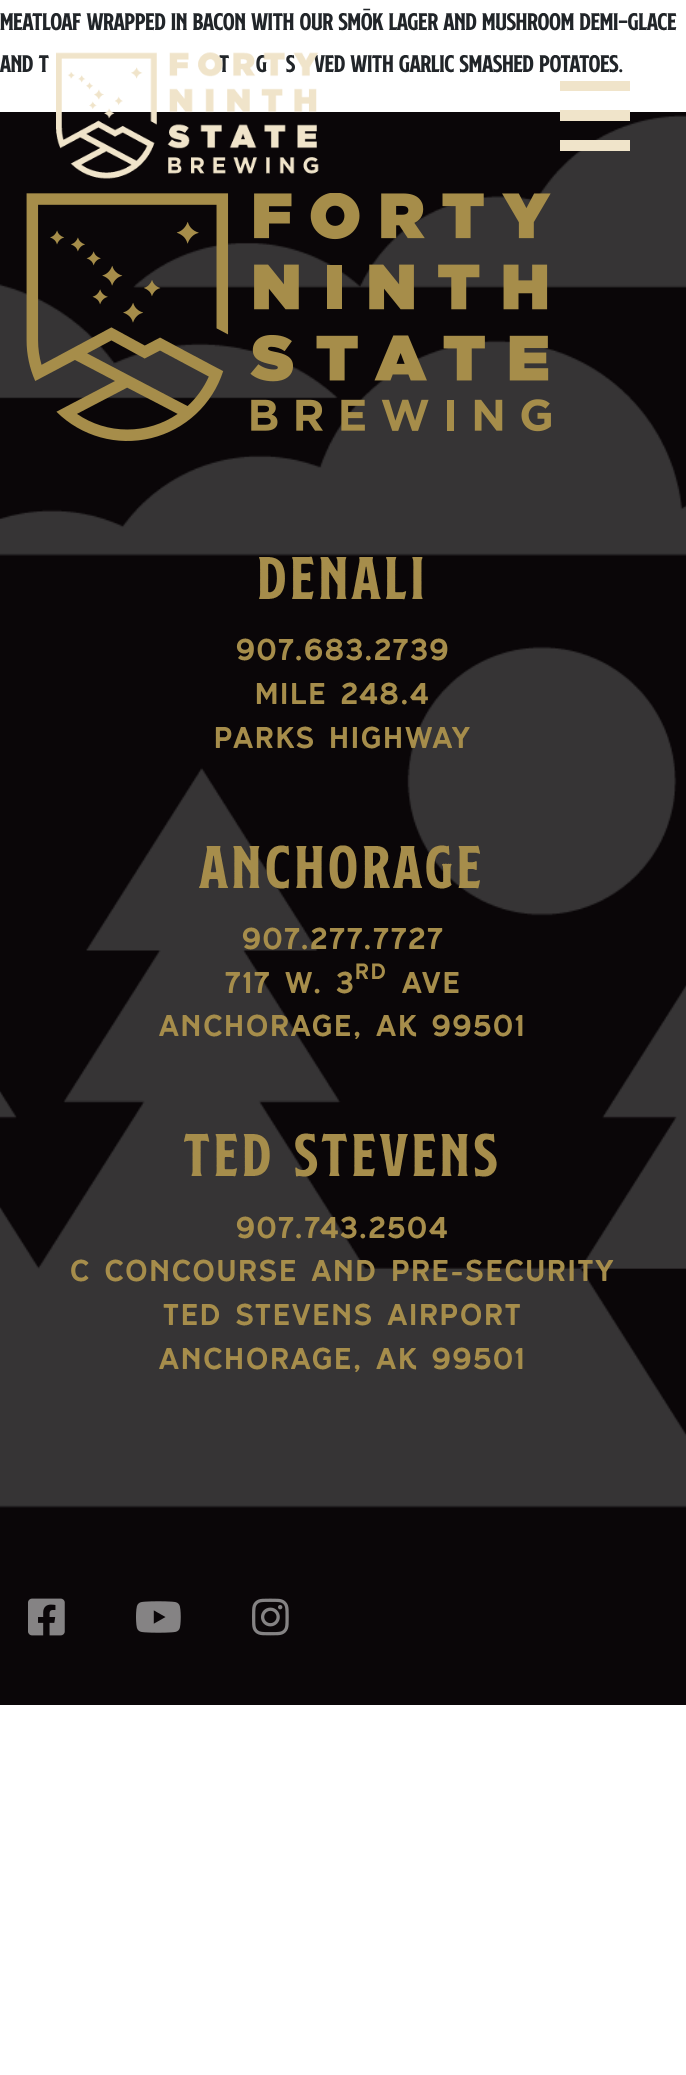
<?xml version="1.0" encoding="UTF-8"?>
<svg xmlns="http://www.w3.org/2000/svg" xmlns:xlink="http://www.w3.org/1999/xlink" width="686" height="2075">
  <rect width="100%" height="100%" fill="#ffffff" />
  <rect y="112" width="686" height="1593" fill="#0a0608" />
  <image x="0" y="115" width="686" height="1393" xlink:href="image2.png" />
  <rect x="560" y="110" width="70" height="11" fill="#f0e4ca" />
  <rect x="560" y="81" width="70" height="10" fill="#f0e4ca" />
  <rect x="560" y="140" width="70" height="11" fill="#f0e4ca" />
  <image x="26" y="193" width="525" height="248" xlink:href="image3.png" />
  <image x="28" y="1598" width="37" height="38" xlink:href="image4.png" />
  <image x="136" y="1601" width="45" height="32" xlink:href="image5.png" />
  <image x="252" y="1598" width="37" height="38" xlink:href="image6.png" />
  <text x="0" y="30" style="font-family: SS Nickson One; font-size: 28px; fill: #212529">Meatloaf wrapped in bacon with our Smōk Lager and mushroom demi-glace</text>
  <text x="0" y="72" style="font-family: SS Nickson One; font-size: 28px; fill: #212529">and t</text>
  <text x="219" y="72" style="font-family: SS Nickson One; font-size: 28px; fill: #212529">t</text>
  <text x="256" y="72" style="font-family: SS Nickson One; font-size: 28px; fill: #212529">g</text>
  <text x="286" y="72" style="font-family: SS Nickson One; font-size: 28px; fill: #212529">S</text>
  <text x="314" y="72" style="font-family: SS Nickson One; font-size: 28px; fill: #212529">ved with garlic smashed potatoes.</text>
  <image x="56" y="52" width="263" height="127" xlink:href="image1.png" />
  <text x="258" y="599" style="font-family: SS Nickson One; font-size: 70px; letter-spacing: 5.25px; fill: #a68d4b">Denali</text>
  <text x="236" y="660" style="font-family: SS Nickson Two; font-size: 35px; letter-spacing: 2.1px; fill: #a68d4b">907.683.2739</text>
  <text x="255" y="704" style="font-family: SS Nickson Two; font-size: 35px; letter-spacing: 2.1px; fill: #a68d4b">Mile 248.4</text>
  <text x="214" y="748" style="font-family: SS Nickson Two; font-size: 35px; letter-spacing: 2.1px; fill: #a68d4b">Parks Highway</text>
  <text x="200" y="888" style="font-family: SS Nickson One; font-size: 70px; letter-spacing: 5.25px; fill: #a68d4b">ANCHORAGE</text>
  <text x="242" y="949" style="font-family: SS Nickson Two; font-size: 35px; letter-spacing: 2.1px; fill: #a68d4b">907.277.7727</text>
  <text x="225" y="993" style="font-family: SS Nickson Two; font-size: 35px; letter-spacing: 2.1px; fill: #a68d4b">717 W. 3</text>
  <text x="355" y="979" style="font-family: SS Nickson Two; font-size: 26px; letter-spacing: 2.1px; fill: #a68d4b">rd</text>
  <text x="402" y="993" style="font-family: SS Nickson Two; font-size: 35px; letter-spacing: 2.1px; fill: #a68d4b">Ave</text>
  <text x="159" y="1036" style="font-family: SS Nickson Two; font-size: 35px; letter-spacing: 2.1px; fill: #a68d4b">Anchorage, AK 99501</text>
  <text x="184" y="1176" style="font-family: SS Nickson One; font-size: 70px; letter-spacing: 5.25px; fill: #a68d4b">ted stevens</text>
  <text x="236" y="1238" style="font-family: SS Nickson Two; font-size: 35px; letter-spacing: 2.1px; fill: #a68d4b">907.743.2504</text>
  <text x="70" y="1281" style="font-family: SS Nickson Two; font-size: 35px; letter-spacing: 2.1px; fill: #a68d4b">C concourse and pre-security</text>
  <text x="163" y="1325" style="font-family: SS Nickson Two; font-size: 35px; letter-spacing: 2.1px; fill: #a68d4b">Ted Stevens Airport</text>
  <text x="159" y="1369" style="font-family: SS Nickson Two; font-size: 35px; letter-spacing: 2.1px; fill: #a68d4b">anchorage, AK 99501</text>
</svg>
